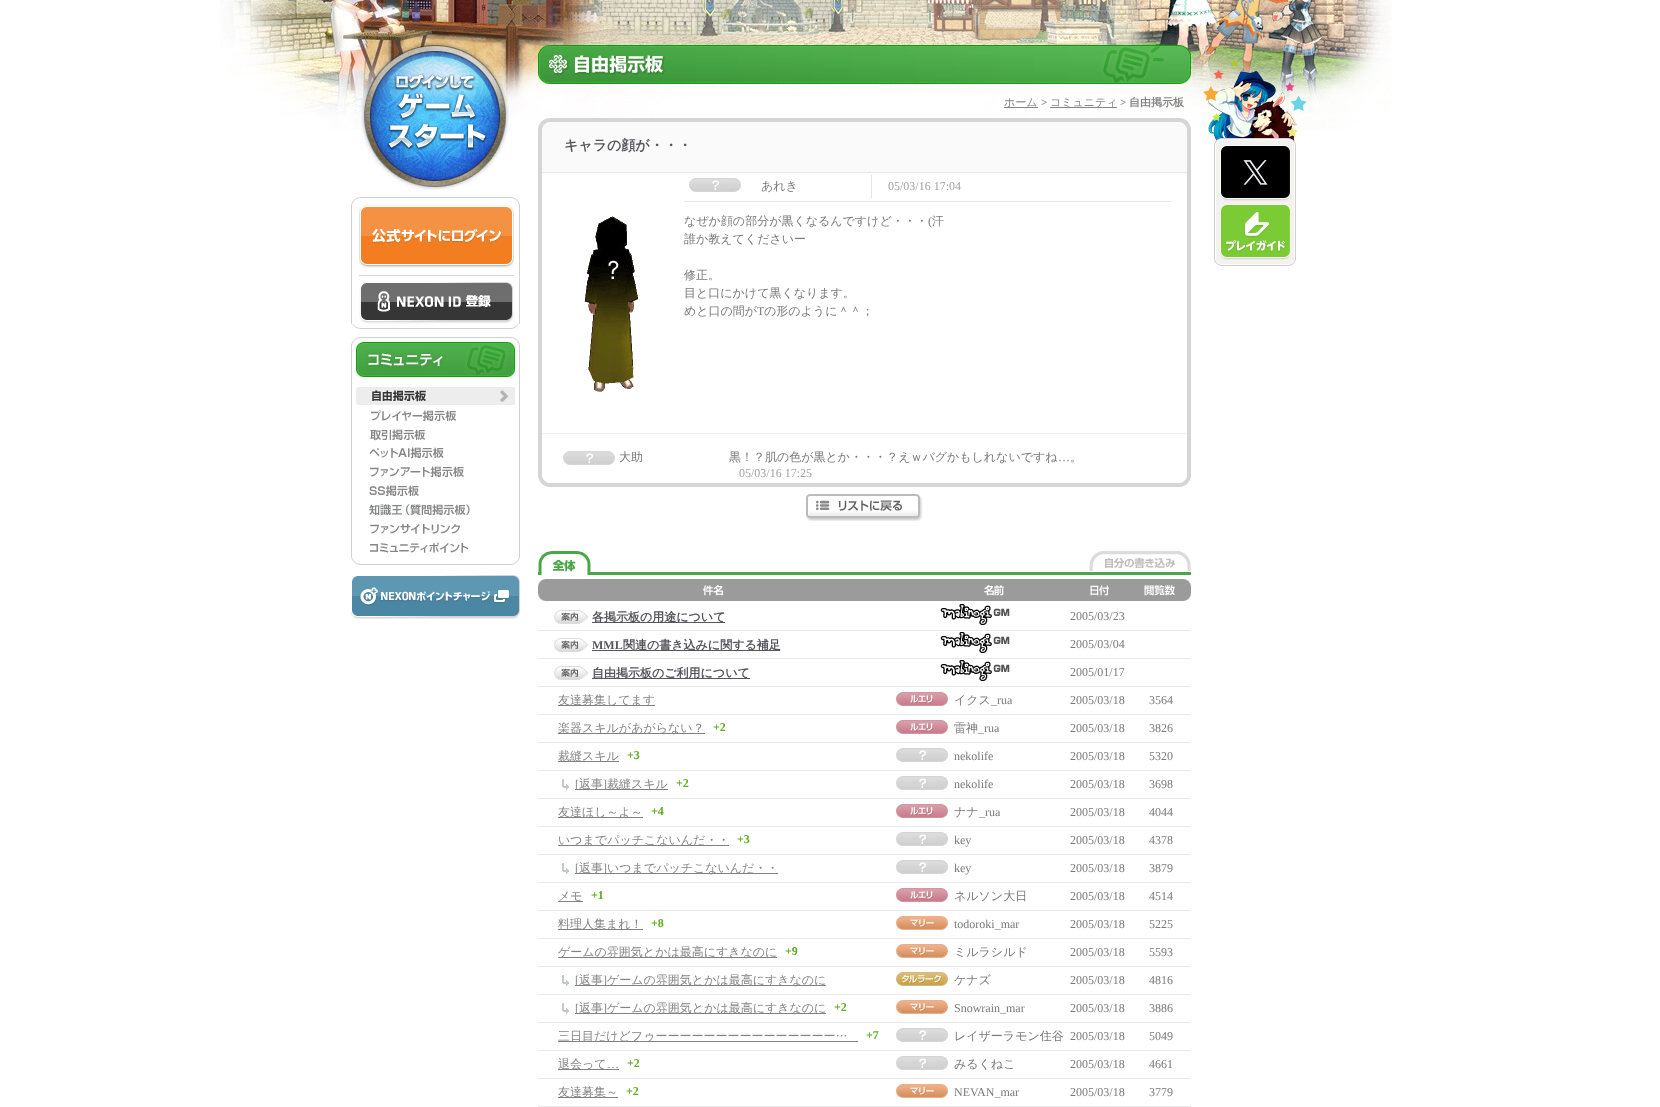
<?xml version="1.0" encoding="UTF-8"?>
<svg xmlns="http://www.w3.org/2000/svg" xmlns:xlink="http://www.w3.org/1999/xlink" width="1660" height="1107">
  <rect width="100%" height="100%" fill="#ffffff" />
  <image x="220" y="0" width="1172" height="130" xlink:href="image1.png" />
  <image x="361" y="42" width="148" height="148" xlink:href="image2.png" />
  <image x="352" y="324" width="167" height="5" xlink:href="image3.png" />
  <image x="351" y="197" width="169" height="127" xlink:href="image4.png" />
  <image x="359" y="205" width="155" height="63" xlink:href="image5.png" />
  <rect x="359" y="275" width="155" height="1" fill="#d7d7d7" />
  <image x="359" y="282" width="155" height="42" xlink:href="image6.png" />
  <image x="351" y="337" width="169" height="40" xlink:href="image7.png" />
  <image x="351" y="377" width="169" height="188" xlink:href="image8.png" />
  <image x="356" y="387" width="159" height="18" xlink:href="image9.png" />
  <image x="371" y="410" width="85" height="11" xlink:href="image10.png" />
  <image x="370" y="429" width="55" height="12" xlink:href="image11.png" />
  <image x="369" y="447" width="75" height="11" xlink:href="image12.png" />
  <image x="370" y="466" width="94" height="11" xlink:href="image13.png" />
  <image x="369" y="485" width="50" height="11" xlink:href="image14.png" />
  <image x="369" y="504" width="101" height="12" xlink:href="image15.png" />
  <image x="370" y="524" width="91" height="10" xlink:href="image16.png" />
  <image x="370" y="542" width="99" height="11" xlink:href="image17.png" />
  <image x="351" y="575" width="169" height="44" xlink:href="image18.png" />
  <image x="538" y="45" width="653" height="39" xlink:href="image19.png" />
  <rect x="1004" y="107" width="34" height="1" fill="#858585" />
  <rect x="1050" y="107" width="67" height="1" fill="#858585" />
  <image x="538" y="118" width="653" height="55" xlink:href="image20.png" />
  <image x="538" y="173" width="653" height="303" xlink:href="image21.png" />
  <image x="538" y="476" width="653" height="11" xlink:href="image22.png" />
  <image x="584" y="216" width="54" height="176" xlink:href="image23.png" />
  <rect x="684" y="201" width="487" height="1" fill="#e6e6e6" />
  <image x="689" y="178" width="52" height="14" xlink:href="image24.png" />
  <rect x="871" y="175" width="1" height="23" fill="#e6e6e6" />
  <rect x="542" y="433" width="645" height="1" fill="#efefef" />
  <image x="563" y="451" width="52" height="14" xlink:href="image24.png" />
  <image x="806" y="494" width="117" height="27" xlink:href="image25.png" />
  <rect x="591" y="572" width="600" height="3" fill="#49a747" />
  <image x="538" y="551" width="53" height="24" xlink:href="image26.png" />
  <image x="1089" y="551" width="102" height="20" xlink:href="image27.png" />
  <image x="538" y="579" width="653" height="22" xlink:href="image28.png" />
  <image x="554" y="610" width="34" height="14" xlink:href="image29.png" />
  <rect x="592" y="622" width="133" height="1" fill="#56545c" />
  <image x="940" y="604" width="70" height="21" xlink:href="image30.png" />
  <rect x="538" y="630" width="653" height="1" fill="#e8e8e8" />
  <image x="554" y="638" width="34" height="14" xlink:href="image29.png" />
  <rect x="592" y="650" width="188" height="1" fill="#56545c" />
  <image x="940" y="632" width="70" height="21" xlink:href="image30.png" />
  <rect x="538" y="658" width="653" height="1" fill="#e8e8e8" />
  <image x="554" y="666" width="34" height="14" xlink:href="image29.png" />
  <rect x="592" y="678" width="158" height="1" fill="#56545c" />
  <image x="940" y="660" width="70" height="21" xlink:href="image30.png" />
  <rect x="538" y="686" width="653" height="1" fill="#e8e8e8" />
  <rect x="558" y="705" width="97" height="1" fill="#808080" />
  <image x="896" y="692" width="52" height="14" xlink:href="image31.png" />
  <rect x="538" y="714" width="653" height="1" fill="#e8e8e8" />
  <rect x="558" y="733" width="147" height="1" fill="#808080" />
  <image x="896" y="720" width="52" height="14" xlink:href="image31.png" />
  <rect x="538" y="742" width="653" height="1" fill="#e8e8e8" />
  <rect x="558" y="761" width="61" height="1" fill="#808080" />
  <image x="896" y="748" width="52" height="14" xlink:href="image24.png" />
  <rect x="538" y="770" width="653" height="1" fill="#e8e8e8" />
  <image x="562" y="779" width="7" height="11" xlink:href="image32.png" />
  <rect x="575" y="789" width="93" height="1" fill="#808080" />
  <image x="896" y="776" width="52" height="14" xlink:href="image24.png" />
  <rect x="538" y="798" width="653" height="1" fill="#e8e8e8" />
  <rect x="558" y="817" width="85" height="1" fill="#808080" />
  <image x="896" y="804" width="52" height="14" xlink:href="image31.png" />
  <rect x="538" y="826" width="653" height="1" fill="#e8e8e8" />
  <rect x="558" y="845" width="171" height="1" fill="#808080" />
  <image x="896" y="832" width="52" height="14" xlink:href="image24.png" />
  <rect x="538" y="854" width="653" height="1" fill="#e8e8e8" />
  <image x="562" y="863" width="7" height="11" xlink:href="image32.png" />
  <rect x="575" y="873" width="203" height="1" fill="#808080" />
  <image x="896" y="860" width="52" height="14" xlink:href="image24.png" />
  <rect x="538" y="882" width="653" height="1" fill="#e8e8e8" />
  <rect x="558" y="901" width="25" height="1" fill="#808080" />
  <image x="896" y="888" width="52" height="14" xlink:href="image31.png" />
  <rect x="538" y="910" width="653" height="1" fill="#e8e8e8" />
  <rect x="558" y="929" width="85" height="1" fill="#808080" />
  <image x="896" y="916" width="52" height="14" xlink:href="image33.png" />
  <rect x="538" y="938" width="653" height="1" fill="#e8e8e8" />
  <rect x="558" y="957" width="219" height="1" fill="#808080" />
  <image x="896" y="944" width="52" height="14" xlink:href="image33.png" />
  <rect x="538" y="966" width="653" height="1" fill="#e8e8e8" />
  <image x="562" y="975" width="7" height="11" xlink:href="image32.png" />
  <rect x="575" y="985" width="251" height="1" fill="#808080" />
  <image x="896" y="972" width="52" height="14" xlink:href="image34.png" />
  <rect x="538" y="994" width="653" height="1" fill="#e8e8e8" />
  <image x="562" y="1003" width="7" height="11" xlink:href="image32.png" />
  <rect x="575" y="1013" width="251" height="1" fill="#808080" />
  <image x="896" y="1000" width="52" height="14" xlink:href="image33.png" />
  <rect x="538" y="1022" width="653" height="1" fill="#e8e8e8" />
  <rect x="558" y="1041" width="300" height="1" fill="#808080" />
  <image x="896" y="1028" width="52" height="14" xlink:href="image24.png" />
  <rect x="538" y="1050" width="653" height="1" fill="#e8e8e8" />
  <rect x="558" y="1069" width="61" height="1" fill="#808080" />
  <image x="896" y="1056" width="52" height="14" xlink:href="image24.png" />
  <rect x="538" y="1078" width="653" height="1" fill="#e8e8e8" />
  <rect x="558" y="1097" width="60" height="1" fill="#808080" />
  <image x="896" y="1084" width="52" height="14" xlink:href="image33.png" />
  <rect x="538" y="1106" width="653" height="1" fill="#e8e8e8" />
  <image x="1203" y="59" width="104" height="207" xlink:href="image35.png" />
  <image x="1214" y="145" width="82" height="115" xlink:href="image36.png" />
  <image x="1220" y="145" width="71" height="56" xlink:href="image37.png" />
  <image x="1220" y="204" width="71" height="56" xlink:href="image38.png" />
  <text x="1004" y="106" style="font-family: WenQuanYi Zen Hei; font-size: 11px; font-weight: 500; fill: #858585">ホーム</text>
  <text x="1041" y="106" style="font-family: Liberation Serif; font-size: 11px; font-weight: bold; fill: #858585">&gt;</text>
  <text x="1050" y="106" style="font-family: WenQuanYi Zen Hei; font-size: 11px; font-weight: 500; fill: #858585">コミュニティ</text>
  <text x="1120" y="106" style="font-family: Liberation Serif; font-size: 11px; font-weight: bold; fill: #858585">&gt;</text>
  <text x="1129" y="106" style="font-family: WenQuanYi Zen Hei; font-size: 11px; font-weight: bold; fill: #858585">自由掲示板</text>
  <text x="564" y="150" style="font-family: WenQuanYi Zen Hei; font-size: 14px; font-weight: bold; fill: #56545c">キャラの顔が・・・</text>
  <text x="761" y="190" style="font-family: WenQuanYi Zen Hei; font-size: 12px; font-weight: 500; fill: #7a7a7a">あれき</text>
  <text x="888" y="190" style="font-family: Liberation Serif; font-size: 12px; fill: #a2a2a2">05/03/16 17:04</text>
  <text x="684" y="225" style="font-family: WenQuanYi Zen Hei; font-size: 12px; font-weight: 500; fill: #7a7a7a">なぜか顔の部分が黒くなるんですけど・・・</text>
  <text x="928" y="225" style="font-family: Liberation Serif; font-size: 12px; fill: #7a7a7a">(</text>
  <text x="932" y="225" style="font-family: WenQuanYi Zen Hei; font-size: 12px; font-weight: 500; fill: #7a7a7a">汗</text>
  <text x="684" y="243" style="font-family: WenQuanYi Zen Hei; font-size: 12px; font-weight: 500; fill: #7a7a7a">誰か教えてくださいー</text>
  <text x="684" y="279" style="font-family: WenQuanYi Zen Hei; font-size: 12px; font-weight: 500; fill: #7a7a7a">修正。</text>
  <text x="684" y="297" style="font-family: WenQuanYi Zen Hei; font-size: 12px; font-weight: 500; fill: #7a7a7a">目と口にかけて黒くなります。</text>
  <text x="684" y="315" style="font-family: WenQuanYi Zen Hei; font-size: 12px; font-weight: 500; fill: #7a7a7a">めと口の間が</text>
  <text x="757" y="315" style="font-family: Liberation Serif; font-size: 12px; fill: #7a7a7a">T</text>
  <text x="764" y="315" style="font-family: WenQuanYi Zen Hei; font-size: 12px; font-weight: 500; fill: #7a7a7a">の形のように＾＾；</text>
  <text x="619" y="461" style="font-family: WenQuanYi Zen Hei; font-size: 12px; font-weight: 500; fill: #7a7a7a">大助</text>
  <text x="729" y="461" style="font-family: WenQuanYi Zen Hei; font-size: 12px; font-weight: 500; fill: #7a7a7a">黒！？肌の色が黒とか・・・？えｗバグかもしれないですね</text>
  <text x="1058" y="461" style="font-family: Liberation Serif; font-size: 12px; fill: #7a7a7a">…</text>
  <text x="1070" y="461" style="font-family: WenQuanYi Zen Hei; font-size: 12px; font-weight: 500; fill: #7a7a7a">。</text>
  <text x="739" y="477" style="font-family: Liberation Serif; font-size: 12px; fill: #a2a2a2">05/03/16 17:25</text>
  <text x="592" y="621" style="font-family: WenQuanYi Zen Hei; font-size: 12px; font-weight: bold; fill: #56545c">各掲示板の用途について</text>
  <text x="1070" y="620" style="font-family: Liberation Serif; font-size: 12px; fill: #7a7a7a">2005/03/23</text>
  <text x="592" y="649" style="font-family: Liberation Serif; font-size: 12px; font-weight: bold; fill: #56545c">MML</text>
  <text x="623" y="649" style="font-family: WenQuanYi Zen Hei; font-size: 12px; font-weight: bold; fill: #56545c">関連の書き込みに関する補足</text>
  <text x="1070" y="648" style="font-family: Liberation Serif; font-size: 12px; fill: #7a7a7a">2005/03/04</text>
  <text x="592" y="677" style="font-family: WenQuanYi Zen Hei; font-size: 12px; font-weight: bold; fill: #56545c">自由掲示板のご利用について</text>
  <text x="1070" y="676" style="font-family: Liberation Serif; font-size: 12px; fill: #7a7a7a">2005/01/17</text>
  <text x="558" y="704" style="font-family: WenQuanYi Zen Hei; font-size: 12px; font-weight: 500; fill: #858585">友達募集してます</text>
  <text x="954" y="704" style="font-family: WenQuanYi Zen Hei; font-size: 12px; font-weight: 500; fill: #7a7a7a">イクス</text>
  <text x="991" y="704" style="font-family: Liberation Serif; font-size: 12px; fill: #7a7a7a">_rua</text>
  <text x="1070" y="704" style="font-family: Liberation Serif; font-size: 12px; fill: #7a7a7a">2005/03/18</text>
  <text x="1149" y="704" style="font-family: Liberation Serif; font-size: 12px; fill: #7a7a7a">3564</text>
  <text x="558" y="732" style="font-family: WenQuanYi Zen Hei; font-size: 12px; font-weight: 500; fill: #858585">楽器スキルがあがらない？</text>
  <text x="713" y="731" style="font-family: Liberation Serif; font-size: 12px; font-weight: bold; fill: #5ead1f">+2</text>
  <text x="954" y="732" style="font-family: WenQuanYi Zen Hei; font-size: 12px; font-weight: 500; fill: #7a7a7a">雷神</text>
  <text x="978" y="732" style="font-family: Liberation Serif; font-size: 12px; fill: #7a7a7a">_rua</text>
  <text x="1070" y="732" style="font-family: Liberation Serif; font-size: 12px; fill: #7a7a7a">2005/03/18</text>
  <text x="1149" y="732" style="font-family: Liberation Serif; font-size: 12px; fill: #7a7a7a">3826</text>
  <text x="558" y="760" style="font-family: WenQuanYi Zen Hei; font-size: 12px; font-weight: 500; fill: #858585">裁縫スキル</text>
  <text x="627" y="759" style="font-family: Liberation Serif; font-size: 12px; font-weight: bold; fill: #5ead1f">+3</text>
  <text x="954" y="760" style="font-family: Liberation Serif; font-size: 12px; fill: #7a7a7a">nekolife</text>
  <text x="1070" y="760" style="font-family: Liberation Serif; font-size: 12px; fill: #7a7a7a">2005/03/18</text>
  <text x="1149" y="760" style="font-family: Liberation Serif; font-size: 12px; fill: #7a7a7a">5320</text>
  <text x="575" y="788" style="font-family: Liberation Serif; font-size: 12px; fill: #858585">[</text>
  <text x="579" y="788" style="font-family: WenQuanYi Zen Hei; font-size: 12px; font-weight: 500; fill: #858585">返事</text>
  <text x="603" y="788" style="font-family: Liberation Serif; font-size: 12px; fill: #858585">]</text>
  <text x="607" y="788" style="font-family: WenQuanYi Zen Hei; font-size: 12px; font-weight: 500; fill: #858585">裁縫スキル</text>
  <text x="676" y="787" style="font-family: Liberation Serif; font-size: 12px; font-weight: bold; fill: #5ead1f">+2</text>
  <text x="954" y="788" style="font-family: Liberation Serif; font-size: 12px; fill: #7a7a7a">nekolife</text>
  <text x="1070" y="788" style="font-family: Liberation Serif; font-size: 12px; fill: #7a7a7a">2005/03/18</text>
  <text x="1149" y="788" style="font-family: Liberation Serif; font-size: 12px; fill: #7a7a7a">3698</text>
  <text x="558" y="816" style="font-family: WenQuanYi Zen Hei; font-size: 12px; font-weight: 500; fill: #858585">友達ほし～よ～</text>
  <text x="651" y="815" style="font-family: Liberation Serif; font-size: 12px; font-weight: bold; fill: #5ead1f">+4</text>
  <text x="954" y="816" style="font-family: WenQuanYi Zen Hei; font-size: 12px; font-weight: 500; fill: #7a7a7a">ナナ</text>
  <text x="979" y="816" style="font-family: Liberation Serif; font-size: 12px; fill: #7a7a7a">_rua</text>
  <text x="1070" y="816" style="font-family: Liberation Serif; font-size: 12px; fill: #7a7a7a">2005/03/18</text>
  <text x="1149" y="816" style="font-family: Liberation Serif; font-size: 12px; fill: #7a7a7a">4044</text>
  <text x="558" y="844" style="font-family: WenQuanYi Zen Hei; font-size: 12px; font-weight: 500; fill: #858585">いつまでパッチこないんだ・・</text>
  <text x="737" y="843" style="font-family: Liberation Serif; font-size: 12px; font-weight: bold; fill: #5ead1f">+3</text>
  <text x="954" y="844" style="font-family: Liberation Serif; font-size: 12px; fill: #7a7a7a">key</text>
  <text x="1070" y="844" style="font-family: Liberation Serif; font-size: 12px; fill: #7a7a7a">2005/03/18</text>
  <text x="1149" y="844" style="font-family: Liberation Serif; font-size: 12px; fill: #7a7a7a">4378</text>
  <text x="575" y="872" style="font-family: Liberation Serif; font-size: 12px; fill: #858585">[</text>
  <text x="579" y="872" style="font-family: WenQuanYi Zen Hei; font-size: 12px; font-weight: 500; fill: #858585">返事</text>
  <text x="603" y="872" style="font-family: Liberation Serif; font-size: 12px; fill: #858585">]</text>
  <text x="607" y="872" style="font-family: WenQuanYi Zen Hei; font-size: 12px; font-weight: 500; fill: #858585">いつまでパッチこないんだ・・</text>
  <text x="954" y="872" style="font-family: Liberation Serif; font-size: 12px; fill: #7a7a7a">key</text>
  <text x="1070" y="872" style="font-family: Liberation Serif; font-size: 12px; fill: #7a7a7a">2005/03/18</text>
  <text x="1149" y="872" style="font-family: Liberation Serif; font-size: 12px; fill: #7a7a7a">3879</text>
  <text x="558" y="900" style="font-family: WenQuanYi Zen Hei; font-size: 12px; font-weight: 500; fill: #858585">メモ</text>
  <text x="591" y="899" style="font-family: Liberation Serif; font-size: 12px; font-weight: bold; fill: #5ead1f">+1</text>
  <text x="954" y="900" style="font-family: WenQuanYi Zen Hei; font-size: 12px; font-weight: 500; fill: #7a7a7a">ネルソン大日</text>
  <text x="1070" y="900" style="font-family: Liberation Serif; font-size: 12px; fill: #7a7a7a">2005/03/18</text>
  <text x="1149" y="900" style="font-family: Liberation Serif; font-size: 12px; fill: #7a7a7a">4514</text>
  <text x="558" y="928" style="font-family: WenQuanYi Zen Hei; font-size: 12px; font-weight: 500; fill: #858585">料理人集まれ！</text>
  <text x="651" y="927" style="font-family: Liberation Serif; font-size: 12px; font-weight: bold; fill: #5ead1f">+8</text>
  <text x="954" y="928" style="font-family: Liberation Serif; font-size: 12px; fill: #7a7a7a">todoroki_mar</text>
  <text x="1070" y="928" style="font-family: Liberation Serif; font-size: 12px; fill: #7a7a7a">2005/03/18</text>
  <text x="1149" y="928" style="font-family: Liberation Serif; font-size: 12px; fill: #7a7a7a">5225</text>
  <text x="558" y="956" style="font-family: WenQuanYi Zen Hei; font-size: 12px; font-weight: 500; fill: #858585">ゲームの雰囲気とかは最高にすきなのに</text>
  <text x="785" y="955" style="font-family: Liberation Serif; font-size: 12px; font-weight: bold; fill: #5ead1f">+9</text>
  <text x="954" y="956" style="font-family: WenQuanYi Zen Hei; font-size: 12px; font-weight: 500; fill: #7a7a7a">ミルラシルド</text>
  <text x="1070" y="956" style="font-family: Liberation Serif; font-size: 12px; fill: #7a7a7a">2005/03/18</text>
  <text x="1149" y="956" style="font-family: Liberation Serif; font-size: 12px; fill: #7a7a7a">5593</text>
  <text x="575" y="984" style="font-family: Liberation Serif; font-size: 12px; fill: #858585">[</text>
  <text x="579" y="984" style="font-family: WenQuanYi Zen Hei; font-size: 12px; font-weight: 500; fill: #858585">返事</text>
  <text x="603" y="984" style="font-family: Liberation Serif; font-size: 12px; fill: #858585">]</text>
  <text x="607" y="984" style="font-family: WenQuanYi Zen Hei; font-size: 12px; font-weight: 500; fill: #858585">ゲームの雰囲気とかは最高にすきなのに</text>
  <text x="954" y="984" style="font-family: WenQuanYi Zen Hei; font-size: 12px; font-weight: 500; fill: #7a7a7a">ケナズ</text>
  <text x="1070" y="984" style="font-family: Liberation Serif; font-size: 12px; fill: #7a7a7a">2005/03/18</text>
  <text x="1149" y="984" style="font-family: Liberation Serif; font-size: 12px; fill: #7a7a7a">4816</text>
  <text x="575" y="1012" style="font-family: Liberation Serif; font-size: 12px; fill: #858585">[</text>
  <text x="579" y="1012" style="font-family: WenQuanYi Zen Hei; font-size: 12px; font-weight: 500; fill: #858585">返事</text>
  <text x="603" y="1012" style="font-family: Liberation Serif; font-size: 12px; fill: #858585">]</text>
  <text x="607" y="1012" style="font-family: WenQuanYi Zen Hei; font-size: 12px; font-weight: 500; fill: #858585">ゲームの雰囲気とかは最高にすきなのに</text>
  <text x="834" y="1011" style="font-family: Liberation Serif; font-size: 12px; font-weight: bold; fill: #5ead1f">+2</text>
  <text x="954" y="1012" style="font-family: Liberation Serif; font-size: 12px; fill: #7a7a7a">Snowrain_mar</text>
  <text x="1070" y="1012" style="font-family: Liberation Serif; font-size: 12px; fill: #7a7a7a">2005/03/18</text>
  <text x="1149" y="1012" style="font-family: Liberation Serif; font-size: 12px; fill: #7a7a7a">3886</text>
  <text x="558" y="1040" style="font-family: WenQuanYi Zen Hei; font-size: 12px; font-weight: 500; fill: #858585">三日目だけどフゥーーーーーーーーーーーーーーー…</text>
  <text x="866" y="1039" style="font-family: Liberation Serif; font-size: 12px; font-weight: bold; fill: #5ead1f">+7</text>
  <text x="954" y="1040" style="font-family: WenQuanYi Zen Hei; font-size: 12px; font-weight: 500; fill: #7a7a7a">レイザーラモン住谷</text>
  <text x="1070" y="1040" style="font-family: Liberation Serif; font-size: 12px; fill: #7a7a7a">2005/03/18</text>
  <text x="1149" y="1040" style="font-family: Liberation Serif; font-size: 12px; fill: #7a7a7a">5049</text>
  <text x="558" y="1068" style="font-family: WenQuanYi Zen Hei; font-size: 12px; font-weight: 500; fill: #858585">退会って</text>
  <text x="607" y="1068" style="font-family: Liberation Serif; font-size: 12px; fill: #858585">…</text>
  <text x="627" y="1067" style="font-family: Liberation Serif; font-size: 12px; font-weight: bold; fill: #5ead1f">+2</text>
  <text x="954" y="1068" style="font-family: WenQuanYi Zen Hei; font-size: 12px; font-weight: 500; fill: #7a7a7a">みるくねこ</text>
  <text x="1070" y="1068" style="font-family: Liberation Serif; font-size: 12px; fill: #7a7a7a">2005/03/18</text>
  <text x="1149" y="1068" style="font-family: Liberation Serif; font-size: 12px; fill: #7a7a7a">4661</text>
  <text x="558" y="1096" style="font-family: WenQuanYi Zen Hei; font-size: 12px; font-weight: 500; fill: #858585">友達募集～</text>
  <text x="626" y="1095" style="font-family: Liberation Serif; font-size: 12px; font-weight: bold; fill: #5ead1f">+2</text>
  <text x="954" y="1096" style="font-family: Liberation Serif; font-size: 12px; fill: #7a7a7a">NEVAN_mar</text>
  <text x="1070" y="1096" style="font-family: Liberation Serif; font-size: 12px; fill: #7a7a7a">2005/03/18</text>
  <text x="1149" y="1096" style="font-family: Liberation Serif; font-size: 12px; fill: #7a7a7a">3779</text>
</svg>
